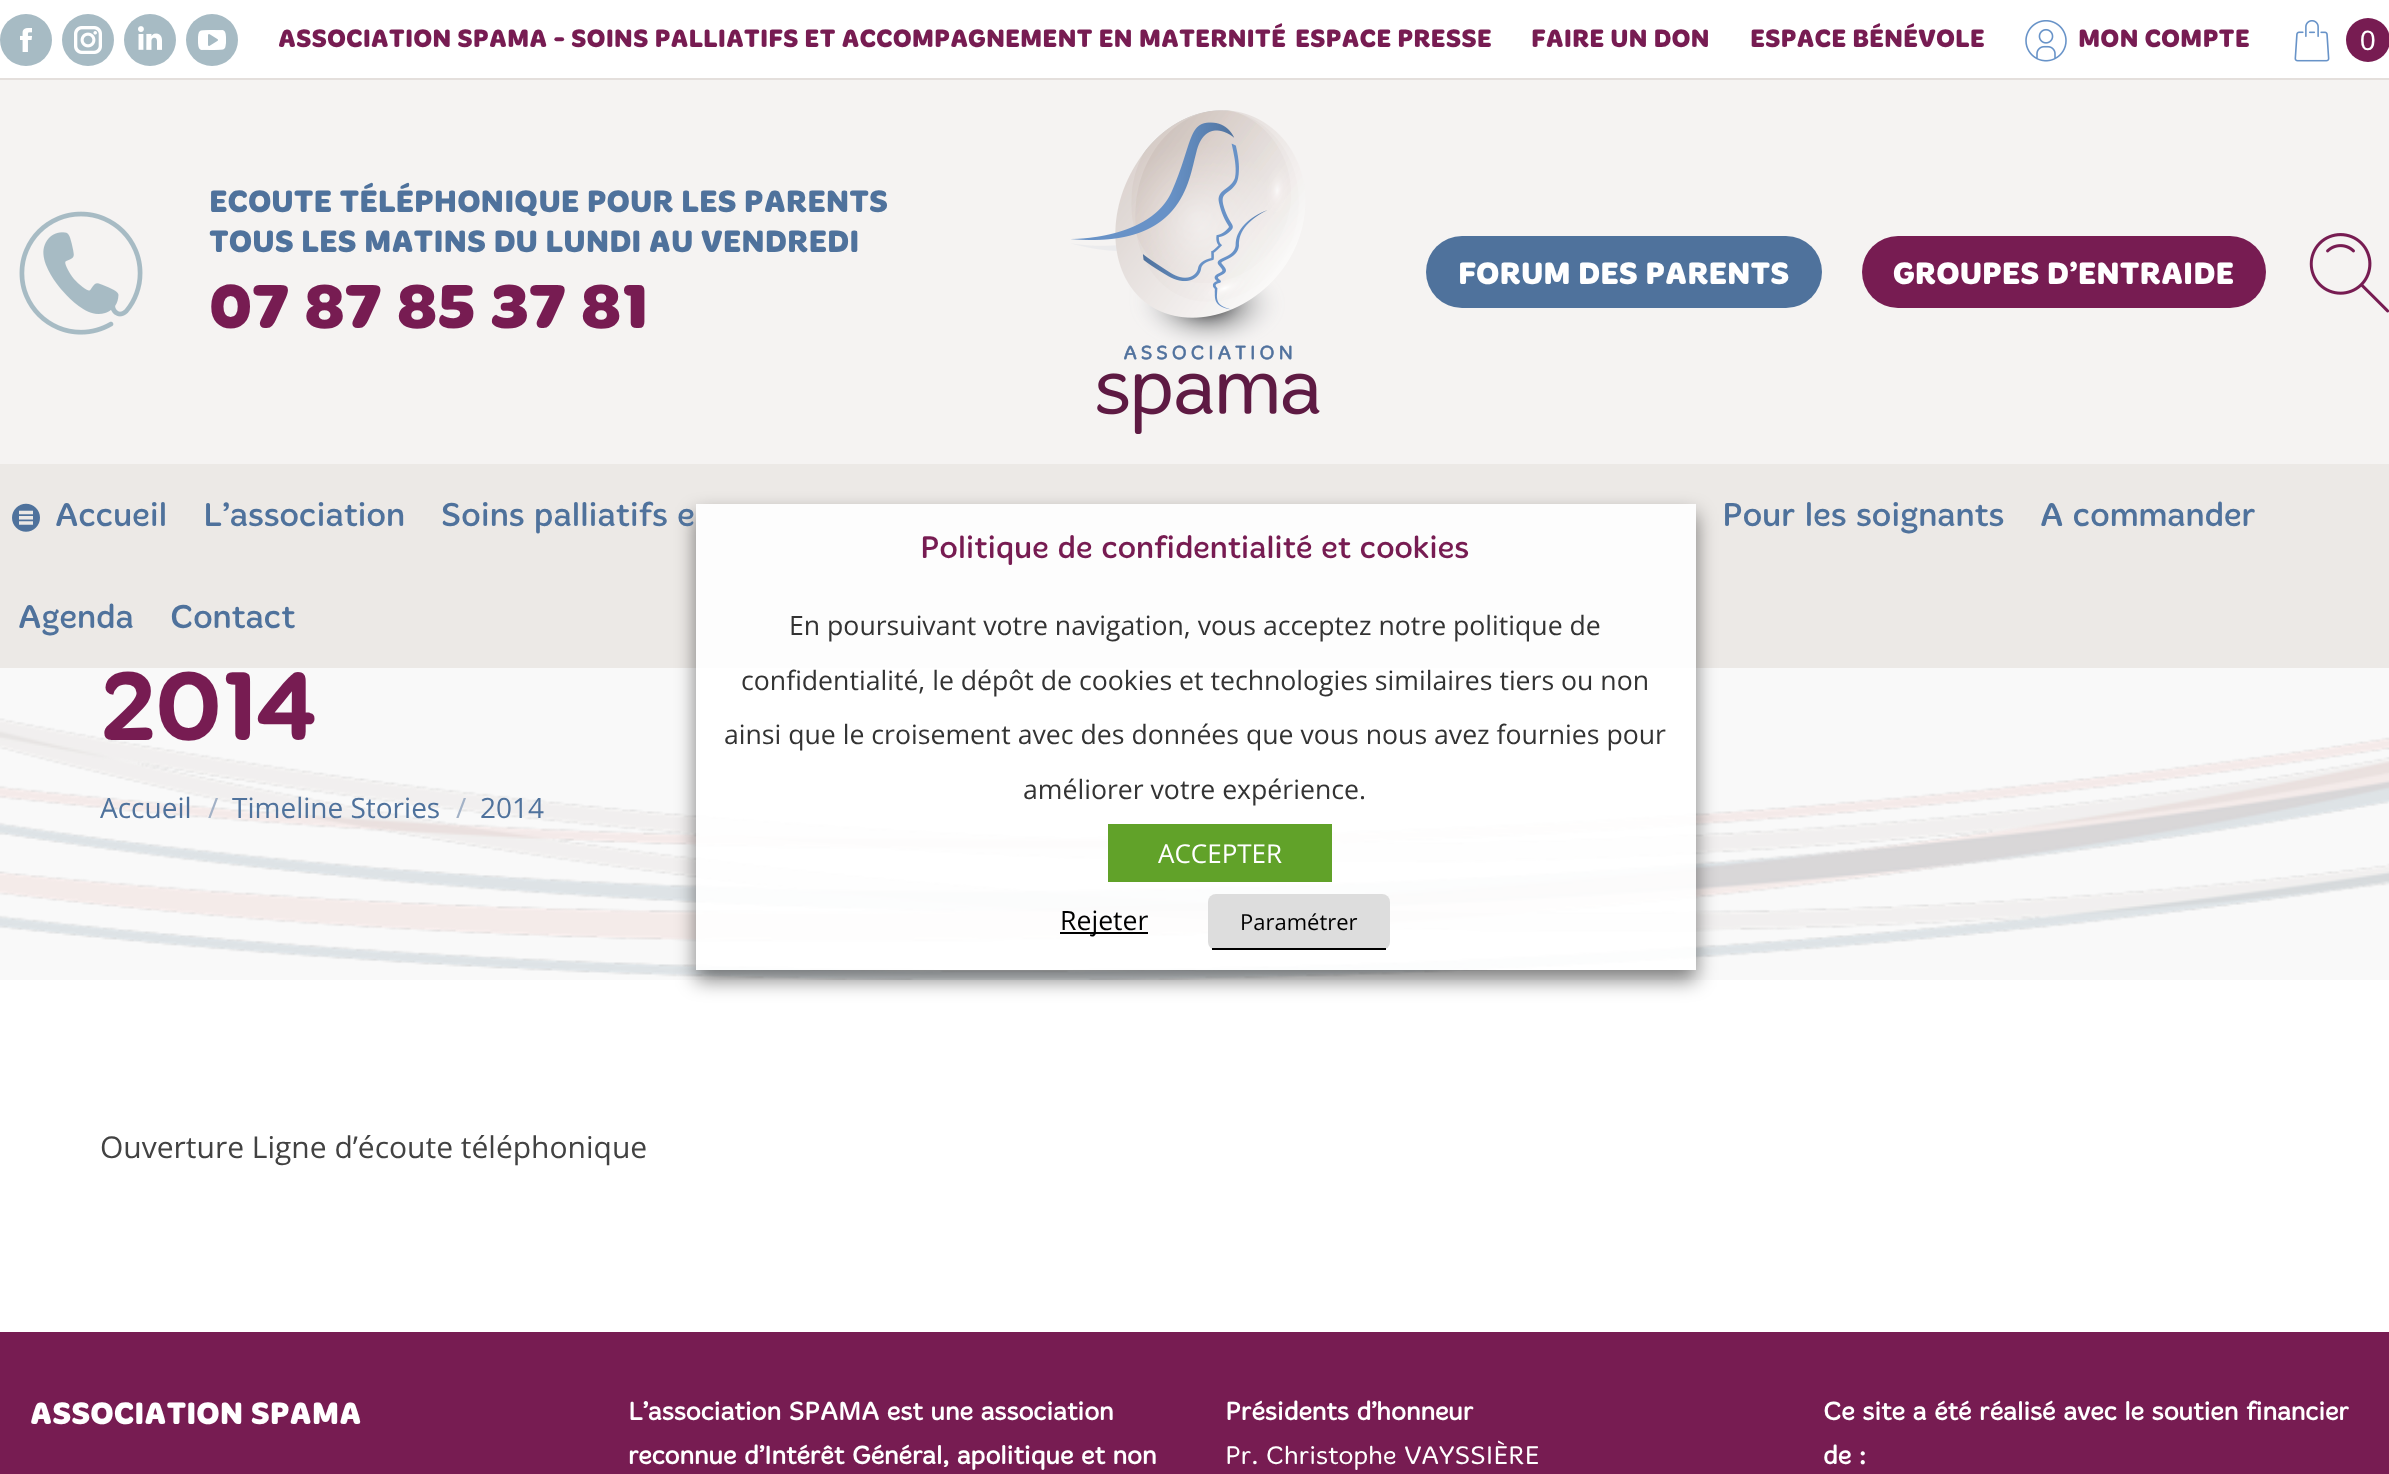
<?xml version="1.0" encoding="UTF-8"?>
<svg xmlns="http://www.w3.org/2000/svg" xmlns:xlink="http://www.w3.org/1999/xlink" width="2389" height="1474">
  <defs>
    <clipPath id="clip1"><path d="M 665 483 h 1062 v 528 h -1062 z m 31 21 h 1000 v 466 h -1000 z" clip-rule="evenodd" /></clipPath>
  </defs>
  <rect width="100%" height="100%" fill="#ffffff" />
  <rect y="80" width="2389" height="384" fill="#f5f3f2" />
  <circle cx="26" cy="40" r="26" fill="#a7bbc4" />
  <image x="20" y="28" width="12" height="24" xlink:href="image1.png" />
  <circle cx="88" cy="40" r="26" fill="#a7bbc4" />
  <image x="74" y="26" width="28" height="28" xlink:href="image2.png" />
  <circle cx="150" cy="40" r="26" fill="#a7bbc4" />
  <image x="138" y="26" width="24" height="24" xlink:href="image3.png" />
  <circle cx="212" cy="40" r="26" fill="#a7bbc4" />
  <image x="198" y="30" width="28" height="20" xlink:href="image4.png" />
  <image x="2025" y="20" width="42" height="42" xlink:href="image5.png" />
  <image x="2294" y="20" width="36" height="42" xlink:href="image6.png" />
  <circle cx="2368" cy="40" r="22" fill="#771c52" />
  <rect y="78" width="2389" height="2" fill="#e4dfdc" />
  <image x="19" y="211" width="124" height="124" xlink:href="image7.png" />
  <image x="1071" y="110" width="249" height="324" xlink:href="image8.png" />
  <rect x="1426" y="236" width="396" height="72" rx="36" fill="#4f729c" />
  <rect x="1862" y="236" width="404" height="72" rx="36" fill="#771c52" />
  <image x="2309" y="233" width="80" height="80" xlink:href="image9.png" />
  <rect y="464" width="2389" height="204" fill="#ece9e6" />
  <image x="12" y="503" width="28" height="29" xlink:href="image10.png" />
  <rect y="668" width="2389" height="312" fill="#f9f9f9" />
  <image x="0" y="718" width="2389" height="262" xlink:href="image11.png" />
  <rect y="1332" width="2389" height="142" fill="#771c52" />
  <g clip-path="url(#clip1)">
    <rect x="696" y="514" width="1000" height="466" fill="#000000" fill-opacity="0.5" filter="blur(10px)" />
  </g>
  <rect x="696" y="504" width="1000" height="466" fill="#ffffff" fill-opacity="0.9" />
  <rect x="1108" y="824" width="224" height="58" fill="#61a229" />
  <rect x="1060" y="932" width="88" height="2" fill="#000000" />
  <rect x="1208" y="894" width="182" height="56" rx="8" fill="#dddddd" />
  <rect x="1212" y="948" width="174" height="2" fill="#000000" />
  <text x="278" y="47" style="font-family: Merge; font-size: 26px; font-weight: bold; fill: #771c52">ASSOCIATION SPAMA - SOINS PALLIATIFS ET ACCOMPAGNEMENT EN MATERNITÉ</text>
  <text x="1295" y="47" style="font-family: Merge; font-size: 26px; font-weight: bold; fill: #771c52">ESPACE PRESSE</text>
  <text x="1531" y="47" style="font-family: Merge; font-size: 26px; font-weight: bold; fill: #771c52">FAIRE UN DON</text>
  <text x="1750" y="47" style="font-family: Merge; font-size: 26px; font-weight: bold; fill: #771c52">ESPACE BÉNÉVOLE</text>
  <text x="2078" y="47" style="font-family: Merge; font-size: 26px; font-weight: bold; fill: #771c52">MON COMPTE</text>
  <text x="2360" y="50" style="font-family: Liberation Sans; font-size: 28px; fill: #ffffff">0</text>
  <text x="209" y="212" style="font-family: Merge; font-size: 32px; font-weight: bold; fill: #4f729c">ECOUTE TÉLÉPHONIQUE POUR LES PARENTS</text>
  <text x="209" y="252" style="font-family: Merge; font-size: 32px; font-weight: bold; fill: #4f729c">TOUS LES MATINS DU LUNDI AU VENDREDI</text>
  <text x="209" y="328" style="font-family: Merge; font-size: 64px; font-weight: bold; fill: #771c52">07 87 85 37 81</text>
  <text x="1458" y="284" style="font-family: Merge; font-size: 32px; font-weight: bold; fill: #ffffff">FORUM DES PARENTS</text>
  <text x="1893" y="284" style="font-family: Merge; font-size: 32px; font-weight: bold; fill: #ffffff">GROUPES D’ENTRAIDE</text>
  <text x="55" y="526" style="font-family: Merge; font-size: 34px; fill: #4f729c">Accueil</text>
  <text x="203" y="526" style="font-family: Merge; font-size: 34px; fill: #4f729c">L’association</text>
  <text x="441" y="526" style="font-family: Merge; font-size: 34px; fill: #4f729c">Soins palliatifs e</text>
  <text x="1722" y="526" style="font-family: Merge; font-size: 34px; fill: #4f729c">Pour les soignants</text>
  <text x="2040" y="526" style="font-family: Merge; font-size: 34px; fill: #4f729c">A commander</text>
  <text x="18" y="628" style="font-family: Merge; font-size: 34px; fill: #4f729c">Agenda</text>
  <text x="170" y="628" style="font-family: Merge; font-size: 34px; fill: #4f729c">Contact</text>
  <text x="100" y="740" style="font-family: 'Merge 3'; font-size: 96px; font-weight: bold; fill: #771c52">2014</text>
  <text x="100" y="818" style="font-family: Open Sans; font-size: 28px; fill: #4f729c">Accueil</text>
  <text x="208" y="818" style="font-family: Open Sans; font-size: 28px; fill: #a2b1c6">/</text>
  <text x="232" y="818" style="font-family: Open Sans; font-size: 28px; fill: #4f729c">Timeline Stories</text>
  <text x="456" y="818" style="font-family: Open Sans; font-size: 28px; fill: #a2b1c6">/</text>
  <text x="480" y="818" style="font-family: Open Sans; font-size: 28px; fill: #4f729c">2014</text>
  <text x="100" y="1158" style="font-family: Open Sans; font-size: 30px; fill: #424242">Ouverture Ligne d’écoute téléphonique</text>
  <text x="30" y="1424" style="font-family: Merge; font-size: 32px; font-weight: bold; fill: #ffffff">ASSOCIATION SPAMA</text>
  <text x="628" y="1420" style="font-family: 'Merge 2'; font-size: 26px; font-weight: bold; fill: #ffffff">L’association SPAMA est une association</text>
  <text x="628" y="1464" style="font-family: 'Merge 2'; font-size: 26px; font-weight: bold; fill: #ffffff">reconnue d’Intérêt Général, apolitique et non</text>
  <text x="1225" y="1420" style="font-family: 'Merge 2'; font-size: 26px; font-weight: bold; fill: #ffffff">Présidents d’honneur</text>
  <text x="1225" y="1464" style="font-family: Merge; font-size: 26px; font-weight: 300; fill: #ffffff">Pr. Christophe VAYSSIÈRE</text>
  <text x="1823" y="1420" style="font-family: 'Merge 2'; font-size: 26px; font-weight: bold; fill: #ffffff">Ce site a été réalisé avec le soutien financier</text>
  <text x="1823" y="1464" style="font-family: 'Merge 2'; font-size: 26px; font-weight: bold; fill: #ffffff">de :</text>
  <text x="920" y="558" style="font-family: Merge; font-size: 32px; fill: #771c52">Politique de confidentialité et cookies</text>
  <text x="789" y="635" style="font-family: Open Sans; font-size: 26.65px; fill: #333333">En poursuivant votre navigation, vous acceptez notre politique de</text>
  <text x="741" y="690" style="font-family: Open Sans; font-size: 26.65px; fill: #333333">confidentialité, le dépôt de cookies et technologies similaires tiers ou non</text>
  <text x="724" y="744" style="font-family: Open Sans; font-size: 26.65px; fill: #333333">ainsi que le croisement avec des données que vous nous avez fournies pour</text>
  <text x="1023" y="799" style="font-family: Open Sans; font-size: 26.65px; fill: #333333">améliorer votre expérience.</text>
  <text x="1158" y="863" style="font-family: Open Sans; font-size: 26px; fill: #ffffff">ACCEPTER</text>
  <text x="1060" y="930" style="font-family: Open Sans; font-size: 26.65px; fill: #000000">Rejeter</text>
  <text x="1240" y="930" style="font-family: Open Sans; font-size: 22px; fill: #000000">Paramétrer</text>
</svg>
